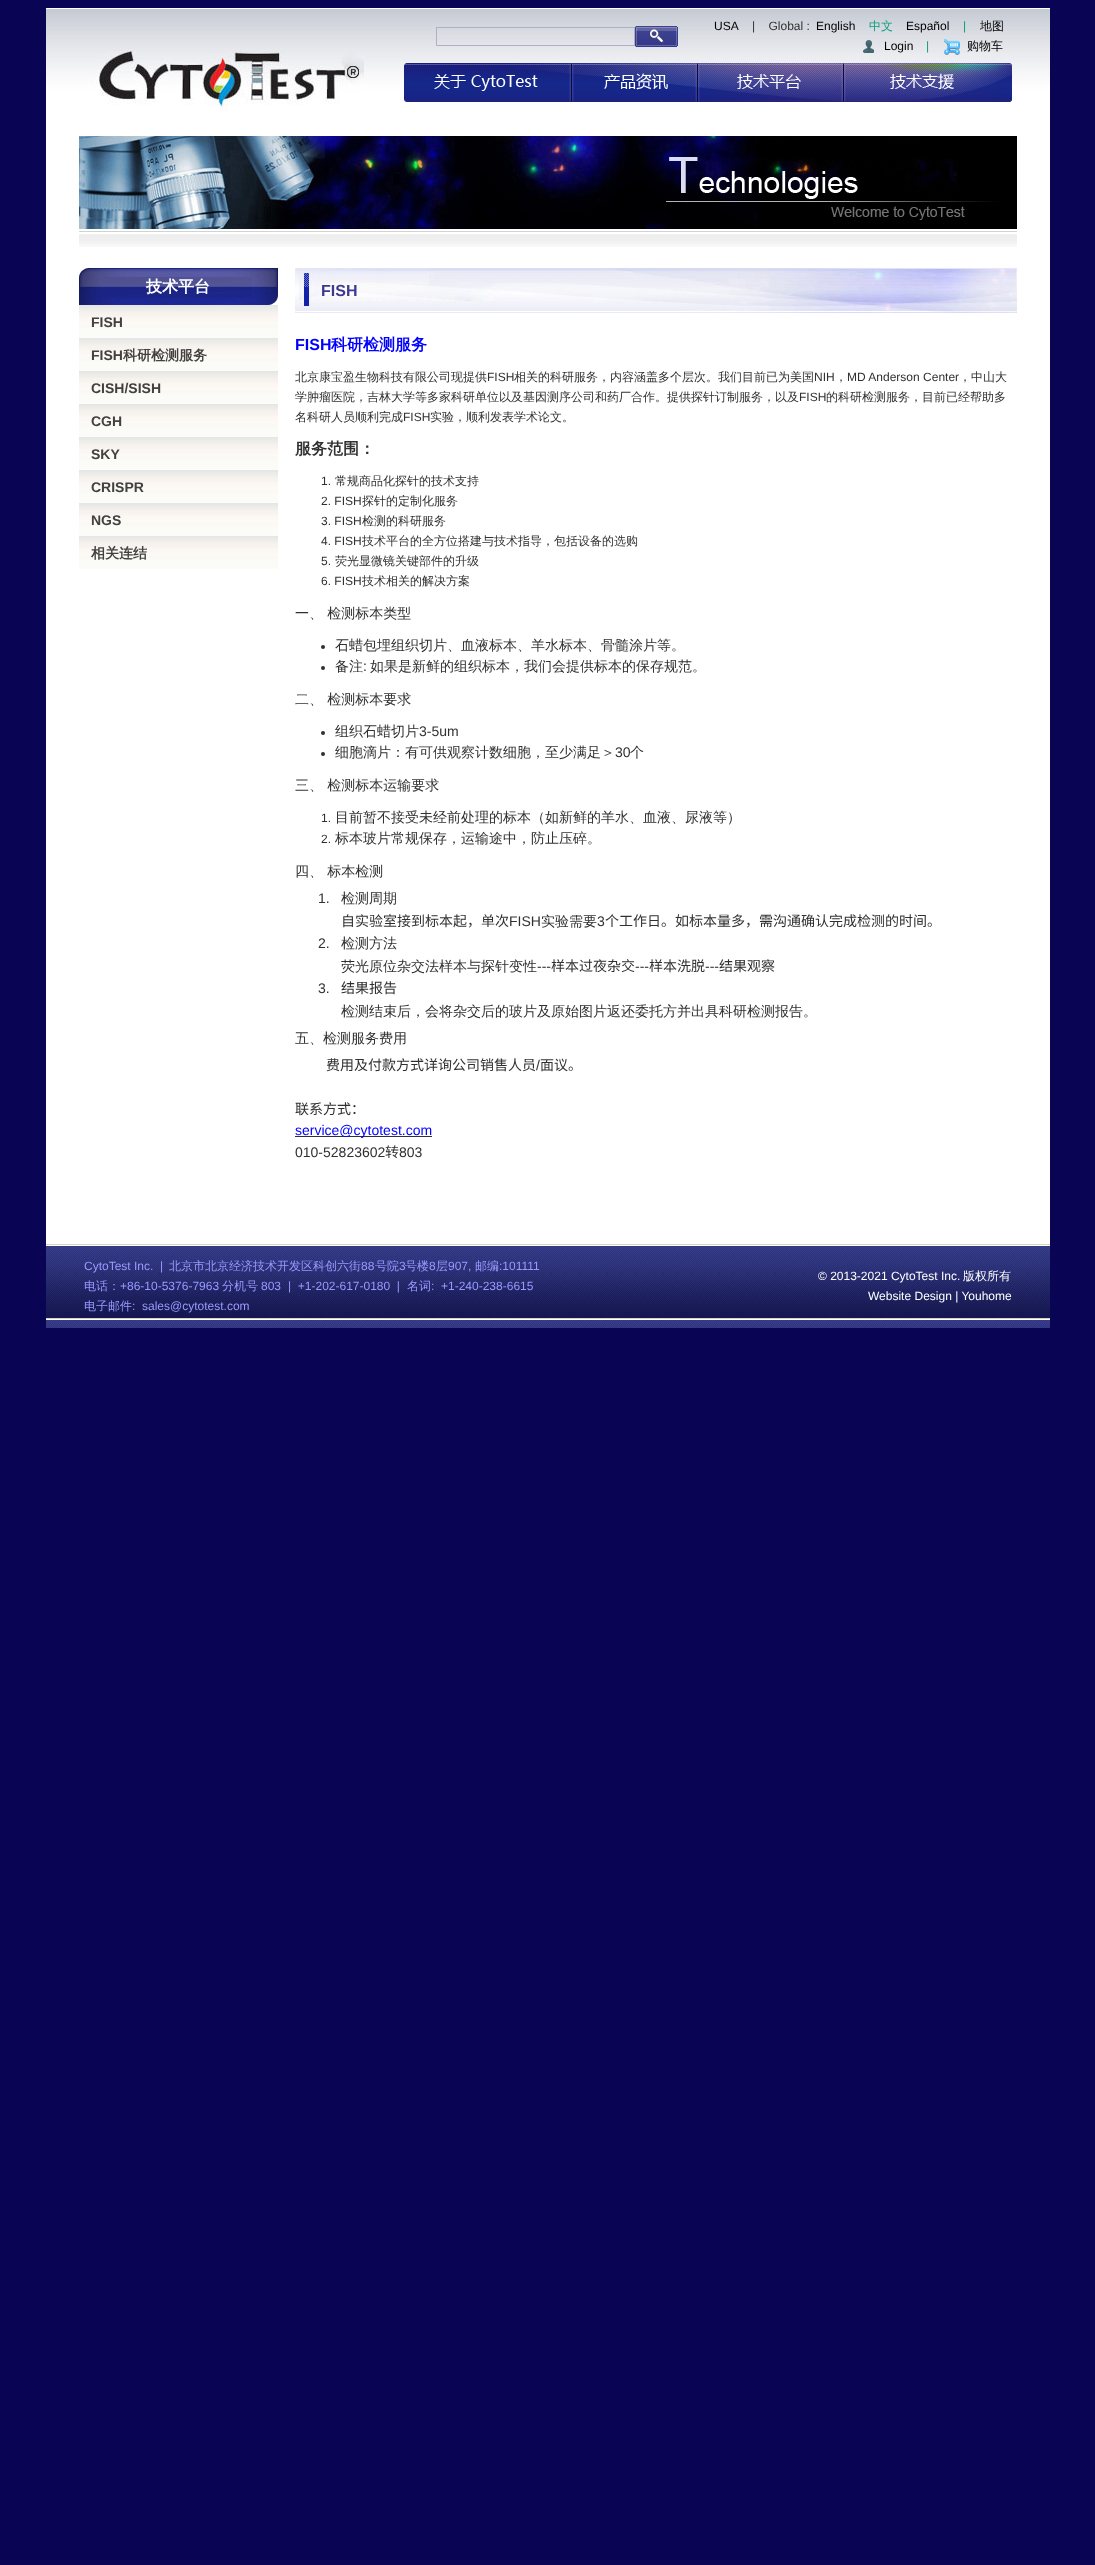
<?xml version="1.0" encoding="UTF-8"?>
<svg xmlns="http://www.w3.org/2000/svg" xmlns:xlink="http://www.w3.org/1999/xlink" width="1095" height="2565">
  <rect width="100%" height="100%" fill="#090454" />
  <image x="46" y="8" width="1004" height="128" xlink:href="image1.png" />
  <rect x="436.5" y="27.5" width="198" height="18" fill="none" stroke="#acb1c3" />
  <image x="635" y="26" width="43" height="21" xlink:href="image2.png" />
  <image x="863" y="40" width="11" height="13" xlink:href="image3.png" />
  <image x="944" y="39" width="16" height="16" xlink:href="image4.png" />
  <image x="404" y="63" width="168" height="39" xlink:href="image5.png" />
  <image x="572" y="63" width="126" height="39" xlink:href="image6.png" />
  <image x="698" y="63" width="146" height="39" xlink:href="image7.png" />
  <image x="844" y="63" width="168" height="39" xlink:href="image8.png" />
  <image x="95" y="49" width="269" height="64" xlink:href="image9.png" />
  <rect x="46" y="136" width="1004" height="1108" fill="#ffffff" />
  <image x="79" y="136" width="938" height="96" xlink:href="image10.png" />
  <image x="79" y="234" width="938" height="13" xlink:href="image11.png" />
  <image x="79" y="268" width="199" height="37" xlink:href="image12.png" />
  <image x="79" y="305" width="12" height="33" xlink:href="image13.png" />
  <image x="91" y="305" width="187" height="33" xlink:href="image14.png" />
  <image x="79" y="338" width="12" height="33" xlink:href="image13.png" />
  <image x="91" y="338" width="187" height="33" xlink:href="image14.png" />
  <image x="79" y="371" width="12" height="33" xlink:href="image13.png" />
  <image x="91" y="371" width="187" height="33" xlink:href="image14.png" />
  <image x="79" y="404" width="12" height="33" xlink:href="image13.png" />
  <image x="91" y="404" width="187" height="33" xlink:href="image14.png" />
  <image x="79" y="437" width="12" height="33" xlink:href="image13.png" />
  <image x="91" y="437" width="187" height="33" xlink:href="image14.png" />
  <image x="79" y="470" width="12" height="33" xlink:href="image13.png" />
  <image x="91" y="470" width="187" height="33" xlink:href="image14.png" />
  <image x="79" y="503" width="12" height="33" xlink:href="image13.png" />
  <image x="91" y="503" width="187" height="33" xlink:href="image14.png" />
  <image x="79" y="536" width="12" height="33" xlink:href="image13.png" />
  <image x="91" y="536" width="187" height="33" xlink:href="image14.png" />
  <image x="295" y="268" width="722" height="45" xlink:href="image15.png" />
  <circle cx="323" cy="647" r="2" fill="#303030" />
  <circle cx="323" cy="668" r="2" fill="#303030" />
  <circle cx="323" cy="733" r="2" fill="#303030" />
  <circle cx="323" cy="754" r="2" fill="#303030" />
  <rect x="295" y="1136" width="137" height="1" fill="#303030" />
  <image x="46" y="1244" width="1004" height="84" xlink:href="image16.png" />
  <text x="714" y="30" style="font-family: Liberation Sans; font-size: 12px; fill: #000000">USA</text>
  <text x="752" y="30" style="font-family: Liberation Sans; font-size: 12px; fill: #303030" xml:space="preserve">|    Global :</text>
  <text x="816" y="30" style="font-family: Liberation Sans; font-size: 12px; fill: #000000">English</text>
  <text x="869" y="30" style="font-family: WenQuanYi Zen Hei; font-size: 12px; font-weight: 500; fill: #0a9e7a">中文</text>
  <text x="906" y="30" style="font-family: Liberation Sans; font-size: 12px; fill: #000000">Español</text>
  <text x="963" y="30" style="font-family: Liberation Sans; font-size: 12px; fill: #0a9e7a">|</text>
  <text x="980" y="30" style="font-family: WenQuanYi Zen Hei; font-size: 12px; font-weight: 500; fill: #000000">地图</text>
  <text x="884" y="50" style="font-family: Liberation Sans; font-size: 12px; fill: #000000">Login</text>
  <text x="926" y="50" style="font-family: Liberation Sans; font-size: 12px; fill: #0a9e7a">|</text>
  <text x="967" y="50" style="font-family: WenQuanYi Zen Hei; font-size: 12px; font-weight: 500; fill: #000000">购物车</text>
  <text x="146" y="292" style="font-family: WenQuanYi Zen Hei; font-size: 16px; font-weight: bold; fill: #ffffff">技术平台</text>
  <text x="91" y="327" style="font-family: Liberation Sans; font-size: 14px; font-weight: bold; fill: #414141">FISH</text>
  <text x="91" y="360" style="font-family: Liberation Sans; font-size: 14px; font-weight: bold; fill: #414141">FISH</text>
  <text x="123" y="360" style="font-family: WenQuanYi Zen Hei; font-size: 14px; font-weight: bold; fill: #414141">科研检测服务</text>
  <text x="91" y="393" style="font-family: Liberation Sans; font-size: 14px; font-weight: bold; fill: #414141">CISH/SISH</text>
  <text x="91" y="426" style="font-family: Liberation Sans; font-size: 14px; font-weight: bold; fill: #414141">CGH</text>
  <text x="91" y="459" style="font-family: Liberation Sans; font-size: 14px; font-weight: bold; fill: #414141">SKY</text>
  <text x="91" y="492" style="font-family: Liberation Sans; font-size: 14px; font-weight: bold; fill: #414141">CRISPR</text>
  <text x="91" y="525" style="font-family: Liberation Sans; font-size: 14px; font-weight: bold; fill: #414141">NGS</text>
  <text x="91" y="558" style="font-family: WenQuanYi Zen Hei; font-size: 14px; font-weight: bold; fill: #414141">相关连结</text>
  <text x="321" y="296" style="font-family: Liberation Sans; font-size: 16px; font-weight: bold; fill: #3d3a91">FISH</text>
  <text x="295" y="350" style="font-family: Liberation Sans; font-size: 16px; font-weight: bold; fill: #0000ff">FISH</text>
  <text x="331" y="350" style="font-family: WenQuanYi Zen Hei; font-size: 16px; font-weight: bold; fill: #0000ff">科研检测服务</text>
  <text x="295" y="381" style="font-family: WenQuanYi Zen Hei; font-size: 12px; font-weight: 500; fill: #303030">北京康宝盈生物科技有限公司现提供</text>
  <text x="487" y="381" style="font-family: Liberation Sans; font-size: 12px; fill: #303030">FISH</text>
  <text x="514" y="381" style="font-family: WenQuanYi Zen Hei; font-size: 12px; font-weight: 500; fill: #303030">相关的科研服务，内容涵盖多个层次。我们目前已为美国</text>
  <text x="814" y="381" style="font-family: Liberation Sans; font-size: 12px; fill: #303030">NIH</text>
  <text x="835" y="381" style="font-family: WenQuanYi Zen Hei; font-size: 12px; font-weight: 500; fill: #303030">，</text>
  <text x="847" y="381" style="font-family: Liberation Sans; font-size: 12px; fill: #303030">MD Anderson Center</text>
  <text x="959" y="381" style="font-family: WenQuanYi Zen Hei; font-size: 12px; font-weight: 500; fill: #303030">，中山大</text>
  <text x="295" y="401" style="font-family: WenQuanYi Zen Hei; font-size: 12px; font-weight: 500; fill: #303030">学肿瘤医院，吉林大学等多家科研单位以及基因测序公司和药厂合作。提供探针订制服务，以及</text>
  <text x="799" y="401" style="font-family: Liberation Sans; font-size: 12px; fill: #303030">FISH</text>
  <text x="826" y="401" style="font-family: WenQuanYi Zen Hei; font-size: 12px; font-weight: 500; fill: #303030">的科研检测服务，目前已经帮助多</text>
  <text x="295" y="421" style="font-family: WenQuanYi Zen Hei; font-size: 12px; font-weight: 500; fill: #303030">名科研人员顺利完成</text>
  <text x="403" y="421" style="font-family: Liberation Sans; font-size: 12px; fill: #303030">FISH</text>
  <text x="430" y="421" style="font-family: WenQuanYi Zen Hei; font-size: 12px; font-weight: 500; fill: #303030">实验，顺利发表学术论文。</text>
  <text x="295" y="454" style="font-family: WenQuanYi Zen Hei; font-size: 16px; font-weight: bold; fill: #303030">服务范围：</text>
  <text x="321" y="485" style="font-family: Liberation Sans; font-size: 12px; fill: #303030">1.</text>
  <text x="335" y="485" style="font-family: WenQuanYi Zen Hei; font-size: 12px; font-weight: 500; fill: #303030">常规商品化探针的技术支持</text>
  <text x="321" y="505" style="font-family: Liberation Sans; font-size: 12px; fill: #303030">2. FISH</text>
  <text x="362" y="505" style="font-family: WenQuanYi Zen Hei; font-size: 12px; font-weight: 500; fill: #303030">探针的定制化服务</text>
  <text x="321" y="525" style="font-family: Liberation Sans; font-size: 12px; fill: #303030">3. FISH</text>
  <text x="362" y="525" style="font-family: WenQuanYi Zen Hei; font-size: 12px; font-weight: 500; fill: #303030">检测的科研服务</text>
  <text x="321" y="545" style="font-family: Liberation Sans; font-size: 12px; fill: #303030">4. FISH</text>
  <text x="362" y="545" style="font-family: WenQuanYi Zen Hei; font-size: 12px; font-weight: 500; fill: #303030">技术平台的全方位搭建与技术指导，包括设备的选购</text>
  <text x="321" y="565" style="font-family: Liberation Sans; font-size: 12px; fill: #303030">5.</text>
  <text x="335" y="565" style="font-family: WenQuanYi Zen Hei; font-size: 12px; font-weight: 500; fill: #303030">荧光显微镜关键部件的升级</text>
  <text x="321" y="585" style="font-family: Liberation Sans; font-size: 12px; fill: #303030">6. FISH</text>
  <text x="362" y="585" style="font-family: WenQuanYi Zen Hei; font-size: 12px; font-weight: 500; fill: #303030">技术相关的解决方案</text>
  <text x="295" y="618" style="font-family: WenQuanYi Zen Hei; font-size: 14px; font-weight: 500; fill: #303030">一、 检测标本类型</text>
  <text x="335" y="650" style="font-family: WenQuanYi Zen Hei; font-size: 14px; font-weight: 500; fill: #303030">石蜡包埋组织切片、血液标本、羊水标本、骨髓涂片等。</text>
  <text x="335" y="671" style="font-family: WenQuanYi Zen Hei; font-size: 14px; font-weight: 500; fill: #303030">备注</text>
  <text x="363" y="671" style="font-family: Liberation Sans; font-size: 14px; fill: #303030">:</text>
  <text x="370" y="671" style="font-family: WenQuanYi Zen Hei; font-size: 14px; font-weight: 500; fill: #303030">如果是新鲜的组织标本，我们会提供标本的保存规范。</text>
  <text x="295" y="704" style="font-family: WenQuanYi Zen Hei; font-size: 14px; font-weight: 500; fill: #303030">二、 检测标本要求</text>
  <text x="335" y="736" style="font-family: WenQuanYi Zen Hei; font-size: 14px; font-weight: 500; fill: #303030">组织石蜡切片</text>
  <text x="419" y="736" style="font-family: Liberation Sans; font-size: 14px; fill: #303030">3-5um</text>
  <text x="335" y="757" style="font-family: WenQuanYi Zen Hei; font-size: 14px; font-weight: 500; fill: #303030">细胞滴片：有可供观察计数细胞，至少满足＞</text>
  <text x="615" y="757" style="font-family: Liberation Sans; font-size: 14px; fill: #303030">30</text>
  <text x="630" y="757" style="font-family: WenQuanYi Zen Hei; font-size: 14px; font-weight: 500; fill: #303030">个</text>
  <text x="295" y="790" style="font-family: WenQuanYi Zen Hei; font-size: 14px; font-weight: 500; fill: #303030">三、 检测标本运输要求</text>
  <text x="321" y="822" style="font-family: Liberation Sans; font-size: 12px; fill: #303030">1.</text>
  <text x="335" y="822" style="font-family: WenQuanYi Zen Hei; font-size: 14px; font-weight: 500; fill: #303030">目前暂不接受未经前处理的标本（如新鲜的羊水、血液、尿液等）</text>
  <text x="321" y="843" style="font-family: Liberation Sans; font-size: 12px; fill: #303030">2.</text>
  <text x="335" y="843" style="font-family: WenQuanYi Zen Hei; font-size: 14px; font-weight: 500; fill: #303030">标本玻片常规保存，运输途中，防止压碎。</text>
  <text x="295" y="876" style="font-family: WenQuanYi Zen Hei; font-size: 14px; font-weight: 500; fill: #303030">四、 标本检测</text>
  <text x="318" y="903" style="font-family: Liberation Sans; font-size: 14px; fill: #303030">1.</text>
  <text x="341" y="903" style="font-family: WenQuanYi Zen Hei; font-size: 14px; font-weight: 500; fill: #303030">检测周期</text>
  <text x="341" y="926" style="font-family: Noto Sans CJK SC; font-size: 14px; fill: #303030">自实验室接到标本起，单次</text>
  <text x="509" y="926" style="font-family: Liberation Sans; font-size: 14px; fill: #303030">FISH</text>
  <text x="541" y="926" style="font-family: WenQuanYi Zen Hei; font-size: 14px; font-weight: 500; fill: #303030">实验需要</text>
  <text x="597" y="926" style="font-family: Liberation Sans; font-size: 14px; fill: #303030">3</text>
  <text x="605" y="926" style="font-family: Noto Sans CJK SC; font-size: 14px; fill: #303030">个工作日。如标本量多，需沟通确认完成检测的时间。</text>
  <text x="318" y="948" style="font-family: Liberation Sans; font-size: 14px; fill: #303030">2.</text>
  <text x="341" y="948" style="font-family: WenQuanYi Zen Hei; font-size: 14px; font-weight: 500; fill: #303030">检测方法</text>
  <text x="341" y="971" style="font-family: WenQuanYi Zen Hei; font-size: 14px; font-weight: 500; fill: #303030">荧光原位杂交法样本与探针变性</text>
  <text x="537" y="971" style="font-family: Liberation Sans; font-size: 14px; fill: #303030">---</text>
  <text x="551" y="971" style="font-family: Noto Sans CJK SC; font-size: 14px; fill: #303030">样本过夜杂交</text>
  <text x="635" y="971" style="font-family: Liberation Sans; font-size: 14px; fill: #303030">---</text>
  <text x="649" y="971" style="font-family: Noto Sans CJK SC; font-size: 14px; fill: #303030">样本洗脱</text>
  <text x="705" y="971" style="font-family: Liberation Sans; font-size: 14px; fill: #303030">---</text>
  <text x="719" y="971" style="font-family: Noto Sans CJK SC; font-size: 14px; fill: #303030">结果观察</text>
  <text x="318" y="993" style="font-family: Liberation Sans; font-size: 14px; fill: #303030">3.</text>
  <text x="341" y="993" style="font-family: Noto Sans CJK SC; font-size: 14px; fill: #303030">结果报告</text>
  <text x="341" y="1016" style="font-family: WenQuanYi Zen Hei; font-size: 14px; font-weight: 500; fill: #303030">检测结束后，会将杂交后的玻片及原始图片返还委托方并出具科研检测报告。</text>
  <text x="295" y="1043" style="font-family: WenQuanYi Zen Hei; font-size: 14px; font-weight: 500; fill: #303030">五、检测服务费用</text>
  <text x="326" y="1070" style="font-family: Noto Sans CJK SC; font-size: 14px; fill: #303030">费用及付款方式详询公司销售人员</text>
  <text x="536" y="1070" style="font-family: Liberation Sans; font-size: 14px; fill: #303030">/</text>
  <text x="540" y="1070" style="font-family: Noto Sans CJK SC; font-size: 14px; fill: #303030">面议。</text>
  <text x="295" y="1114" style="font-family: Noto Sans CJK SC; font-size: 14px; fill: #303030">联系方式：</text>
  <text x="295" y="1135" style="font-family: Liberation Sans; font-size: 14px; fill: #0000ff">service@cytotest.com</text>
  <text x="295" y="1157" style="font-family: Liberation Sans; font-size: 14px; fill: #303030">010-52823602</text>
  <text x="385" y="1157" style="font-family: Noto Sans CJK SC; font-size: 14px; fill: #303030">转</text>
  <text x="399" y="1157" style="font-family: Liberation Sans; font-size: 14px; fill: #303030">803</text>
  <text x="84" y="1270" style="font-family: Liberation Sans; font-size: 12px; fill: #9999ff" xml:space="preserve">CytoTest Inc.  |</text>
  <text x="169" y="1270" style="font-family: WenQuanYi Zen Hei; font-size: 12px; font-weight: 500; fill: #9999ff">北京市北京经济技术开发区科创六街</text>
  <text x="361" y="1270" style="font-family: Liberation Sans; font-size: 12px; fill: #9999ff">88</text>
  <text x="375" y="1270" style="font-family: WenQuanYi Zen Hei; font-size: 12px; font-weight: 500; fill: #9999ff">号院</text>
  <text x="399" y="1270" style="font-family: Liberation Sans; font-size: 12px; fill: #9999ff">3</text>
  <text x="405" y="1270" style="font-family: WenQuanYi Zen Hei; font-size: 12px; font-weight: 500; fill: #9999ff">号楼</text>
  <text x="429" y="1270" style="font-family: Liberation Sans; font-size: 12px; fill: #9999ff">8</text>
  <text x="436" y="1270" style="font-family: WenQuanYi Zen Hei; font-size: 12px; font-weight: 500; fill: #9999ff">层</text>
  <text x="448" y="1270" style="font-family: Liberation Sans; font-size: 12px; fill: #9999ff">907,</text>
  <text x="475" y="1270" style="font-family: WenQuanYi Zen Hei; font-size: 12px; font-weight: 500; fill: #9999ff">邮编</text>
  <text x="499" y="1270" style="font-family: Liberation Sans; font-size: 12px; fill: #9999ff">:101111</text>
  <text x="84" y="1290" style="font-family: WenQuanYi Zen Hei; font-size: 12px; font-weight: 500; fill: #9999ff">电话：</text>
  <text x="120" y="1290" style="font-family: Liberation Sans; font-size: 12px; fill: #9999ff">+86-10-5376-7963</text>
  <text x="222" y="1290" style="font-family: WenQuanYi Zen Hei; font-size: 12px; font-weight: 500; fill: #9999ff">分机号</text>
  <text x="261" y="1290" style="font-family: Liberation Sans; font-size: 12px; fill: #9999ff">803</text>
  <text x="288" y="1290" style="font-family: Liberation Sans; font-size: 12px; fill: #9999ff" xml:space="preserve">|  +1-202-617-0180  |</text>
  <text x="407" y="1290" style="font-family: WenQuanYi Zen Hei; font-size: 12px; font-weight: 500; fill: #9999ff">名词</text>
  <text x="431" y="1290" style="font-family: Liberation Sans; font-size: 12px; fill: #9999ff" xml:space="preserve">:  +1-240-238-6615</text>
  <text x="84" y="1310" style="font-family: WenQuanYi Zen Hei; font-size: 12px; font-weight: 500; fill: #9999ff">电子邮件</text>
  <text x="132" y="1310" style="font-family: Liberation Sans; font-size: 12px; fill: #9999ff">:</text>
  <text x="142" y="1310" style="font-family: Liberation Sans; font-size: 12px; fill: #9999ff">sales@cytotest.com</text>
  <text x="818" y="1280" style="font-family: Liberation Sans; font-size: 12px; fill: #ffffff">© 2013-2021 CytoTest Inc.</text>
  <text x="963" y="1280" style="font-family: WenQuanYi Zen Hei; font-size: 12px; font-weight: 500; fill: #ffffff">版权所有</text>
  <text x="868" y="1300" style="font-family: Liberation Sans; font-size: 12px; fill: #ffffff">Website Design | Youhome</text>
</svg>
